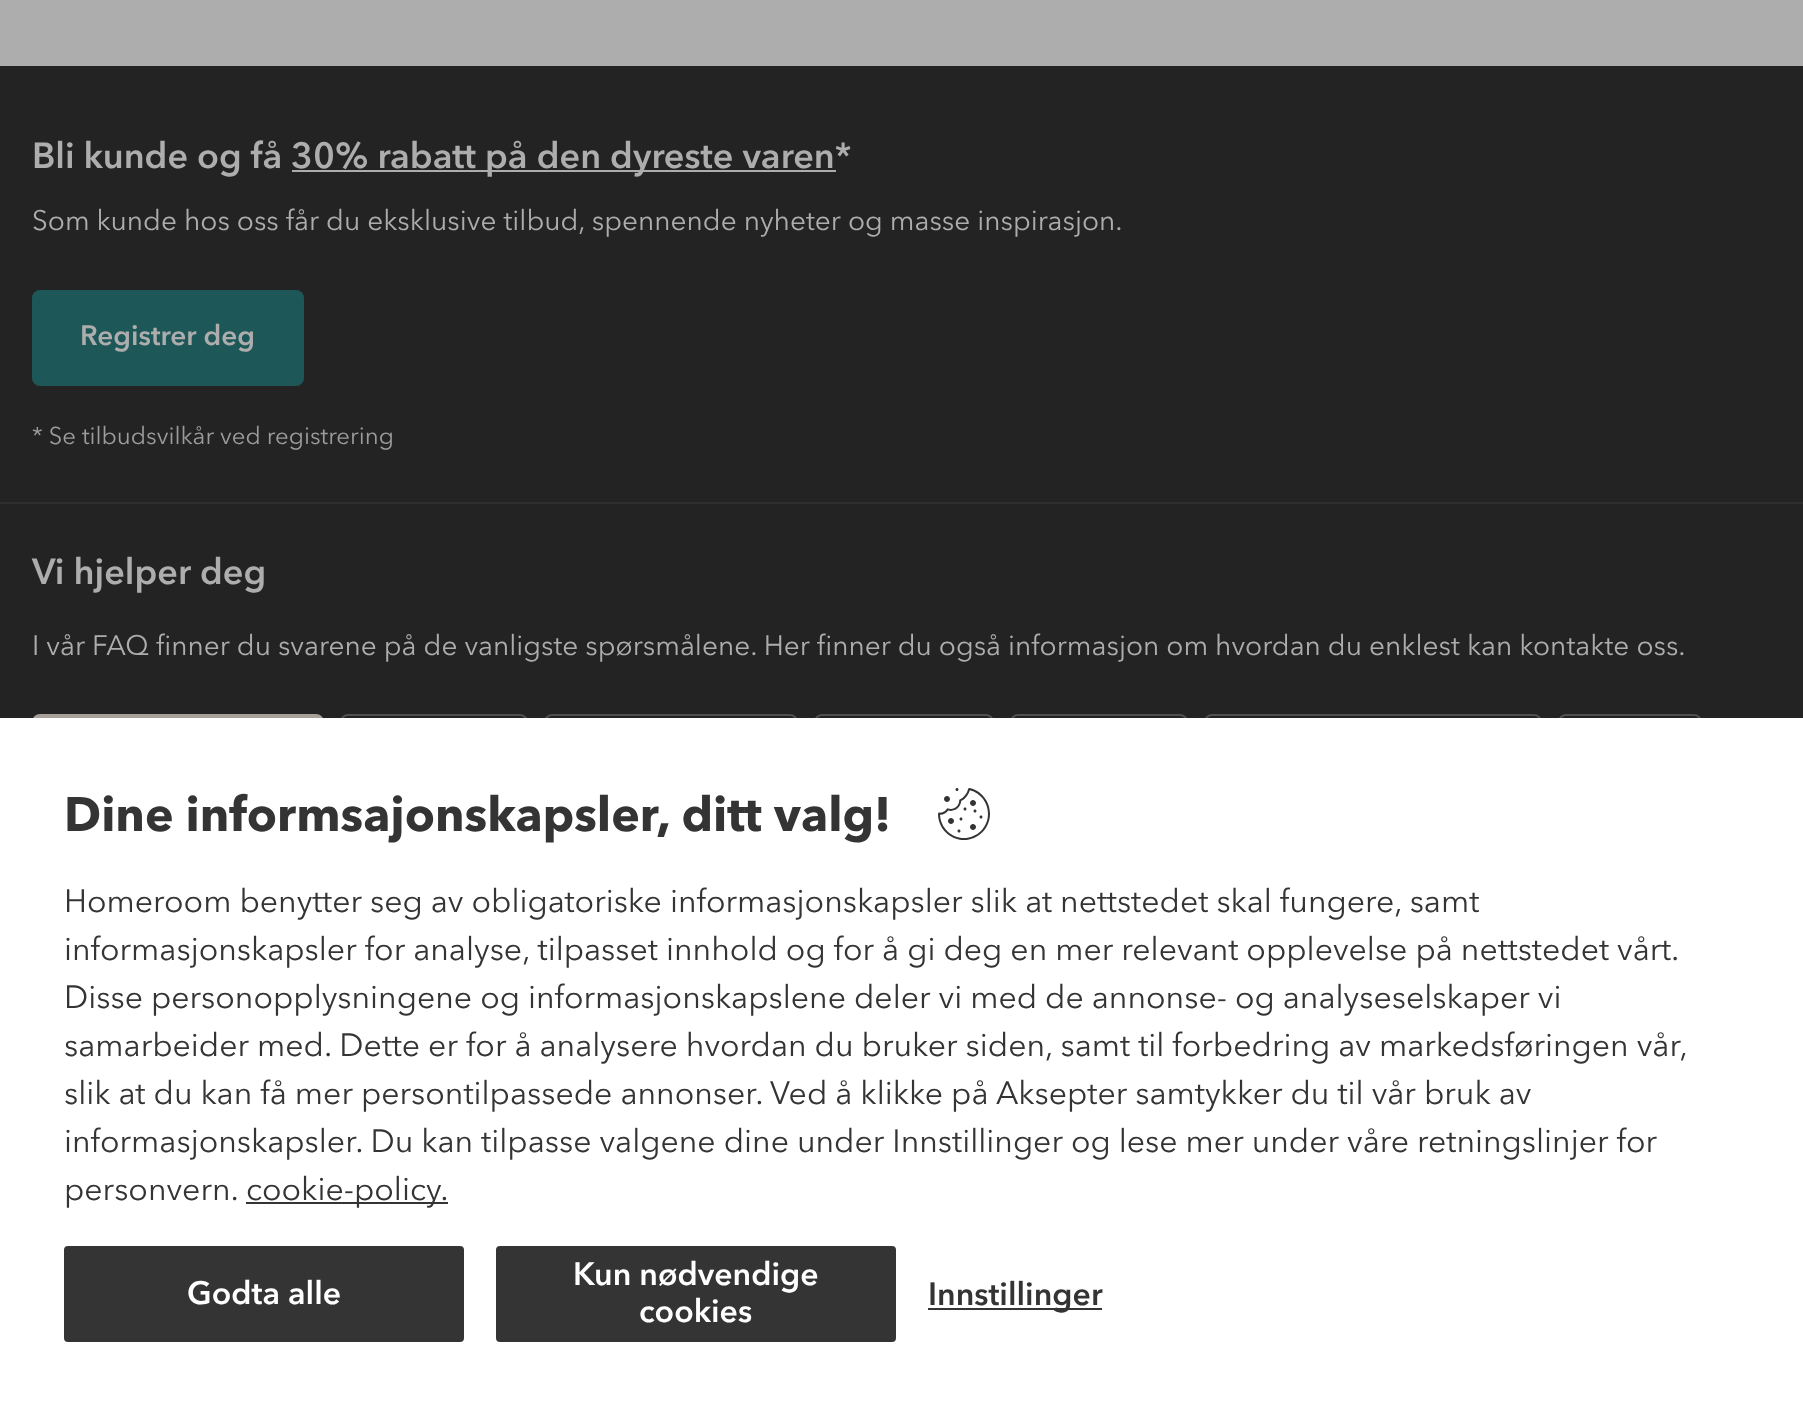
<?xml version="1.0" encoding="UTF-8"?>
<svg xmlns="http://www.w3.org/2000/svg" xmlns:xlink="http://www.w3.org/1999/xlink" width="1803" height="1406">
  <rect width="100%" height="100%" fill="#adadad" />
  <rect y="66" width="1803" height="652" fill="#232323" />
  <rect y="502" width="1803" height="2" fill="#2e2e2e" />
  <rect x="292" y="170" width="544" height="2" fill="#adadad" />
  <rect x="32" y="290" width="272" height="96" rx="8" fill="#1d5758" />
  <rect x="33" y="715" width="290" height="78" rx="7" fill="#a6a099" stroke="#a6a099" stroke-width="2" />
  <rect x="341" y="715" width="186" height="78" rx="7" fill="none" stroke="#505050" stroke-width="2" />
  <rect x="545" y="715" width="252" height="78" rx="7" fill="none" stroke="#505050" stroke-width="2" />
  <rect x="815" y="715" width="178" height="78" rx="7" fill="none" stroke="#505050" stroke-width="2" />
  <rect x="1011" y="715" width="176" height="78" rx="7" fill="none" stroke="#505050" stroke-width="2" />
  <rect x="1205" y="715" width="336" height="78" rx="7" fill="none" stroke="#505050" stroke-width="2" />
  <rect x="1559" y="715" width="142" height="78" rx="7" fill="none" stroke="#505050" stroke-width="2" />
  <rect y="718" width="1803" height="688" fill="#ffffff" />
  <image x="938" y="788" width="52" height="52" xlink:href="image1.png" />
  <rect x="246" y="1202" width="202" height="2" fill="#343434" />
  <rect x="64" y="1246" width="400" height="96" rx="4" fill="#343434" />
  <rect x="496" y="1246" width="400" height="96" rx="4" fill="#343434" />
  <rect x="928" y="1308" width="174" height="2" fill="#343434" />
  <text x="32" y="168" style="font-family: Avenir; font-size: 36px; font-weight: bold; fill: #adadad">Bli kunde og få</text>
  <text x="291" y="168" style="font-family: Avenir; font-size: 36px; font-weight: bold; fill: #adadad">30% rabatt på den dyreste varen*</text>
  <text x="32" y="230" style="font-family: Avenir; font-size: 28px; fill: #adadad">Som kunde hos oss får du eksklusive tilbud, spennende nyheter og masse inspirasjon.</text>
  <text x="80" y="345" style="font-family: Avenir; font-size: 28px; font-weight: bold; fill: #adadad">Registrer deg</text>
  <text x="32" y="444" style="font-family: Avenir; font-size: 24px; fill: #9c9c9c">* Se tilbudsvilkår ved registrering</text>
  <text x="32" y="584" style="font-family: Avenir; font-size: 36px; font-weight: bold; fill: #adadad">Vi hjelper deg</text>
  <text x="32" y="655" style="font-family: Avenir; font-size: 28px; fill: #adadad">I vår FAQ finner du svarene på de vanligste spørsmålene. Her finner du også informasjon om hvordan du enklest kan kontakte oss.</text>
  <text x="64" y="831" style="font-family: 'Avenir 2'; font-size: 48px; font-weight: bold; fill: #343434">Dine informsajonskapsler, ditt valg!</text>
  <text x="64" y="912" style="font-family: Avenir; font-size: 32px; fill: #343434">Homeroom benytter seg av obligatoriske informasjonskapsler slik at nettstedet skal fungere, samt</text>
  <text x="64" y="960" style="font-family: Avenir; font-size: 32px; fill: #343434">informasjonskapsler for analyse, tilpasset innhold og for å gi deg en mer relevant opplevelse på nettstedet vårt.</text>
  <text x="64" y="1008" style="font-family: Avenir; font-size: 32px; fill: #343434">Disse personopplysningene og informasjonskapslene deler vi med de annonse- og analyseselskaper vi</text>
  <text x="64" y="1056" style="font-family: Avenir; font-size: 32px; fill: #343434">samarbeider med. Dette er for å analysere hvordan du bruker siden, samt til forbedring av markedsføringen vår,</text>
  <text x="64" y="1104" style="font-family: Avenir; font-size: 32px; fill: #343434">slik at du kan få mer persontilpassede annonser.</text>
  <text x="770" y="1104" style="font-family: Avenir; font-size: 32px; fill: #343434">Ved å klikke på Aksepter samtykker du til vår bruk av</text>
  <text x="64" y="1152" style="font-family: Avenir; font-size: 32px; fill: #343434">informasjonskapsler. Du kan tilpasse valgene dine under Innstillinger og lese mer under våre retningslinjer for</text>
  <text x="64" y="1200" style="font-family: Avenir; font-size: 32px; fill: #343434">personvern.</text>
  <text x="246" y="1200" style="font-family: Avenir; font-size: 32px; fill: #343434">cookie-policy.</text>
  <text x="187" y="1304" style="font-family: Avenir; font-size: 32px; font-weight: bold; fill: #ffffff">Godta alle</text>
  <text x="573" y="1285" style="font-family: Avenir; font-size: 32px; font-weight: bold; fill: #ffffff">Kun nødvendige</text>
  <text x="639" y="1322" style="font-family: Avenir; font-size: 32px; font-weight: bold; fill: #ffffff">cookies</text>
  <text x="928" y="1305" style="font-family: Avenir; font-size: 32px; font-weight: bold; fill: #343434">Innstillinger</text>
</svg>
